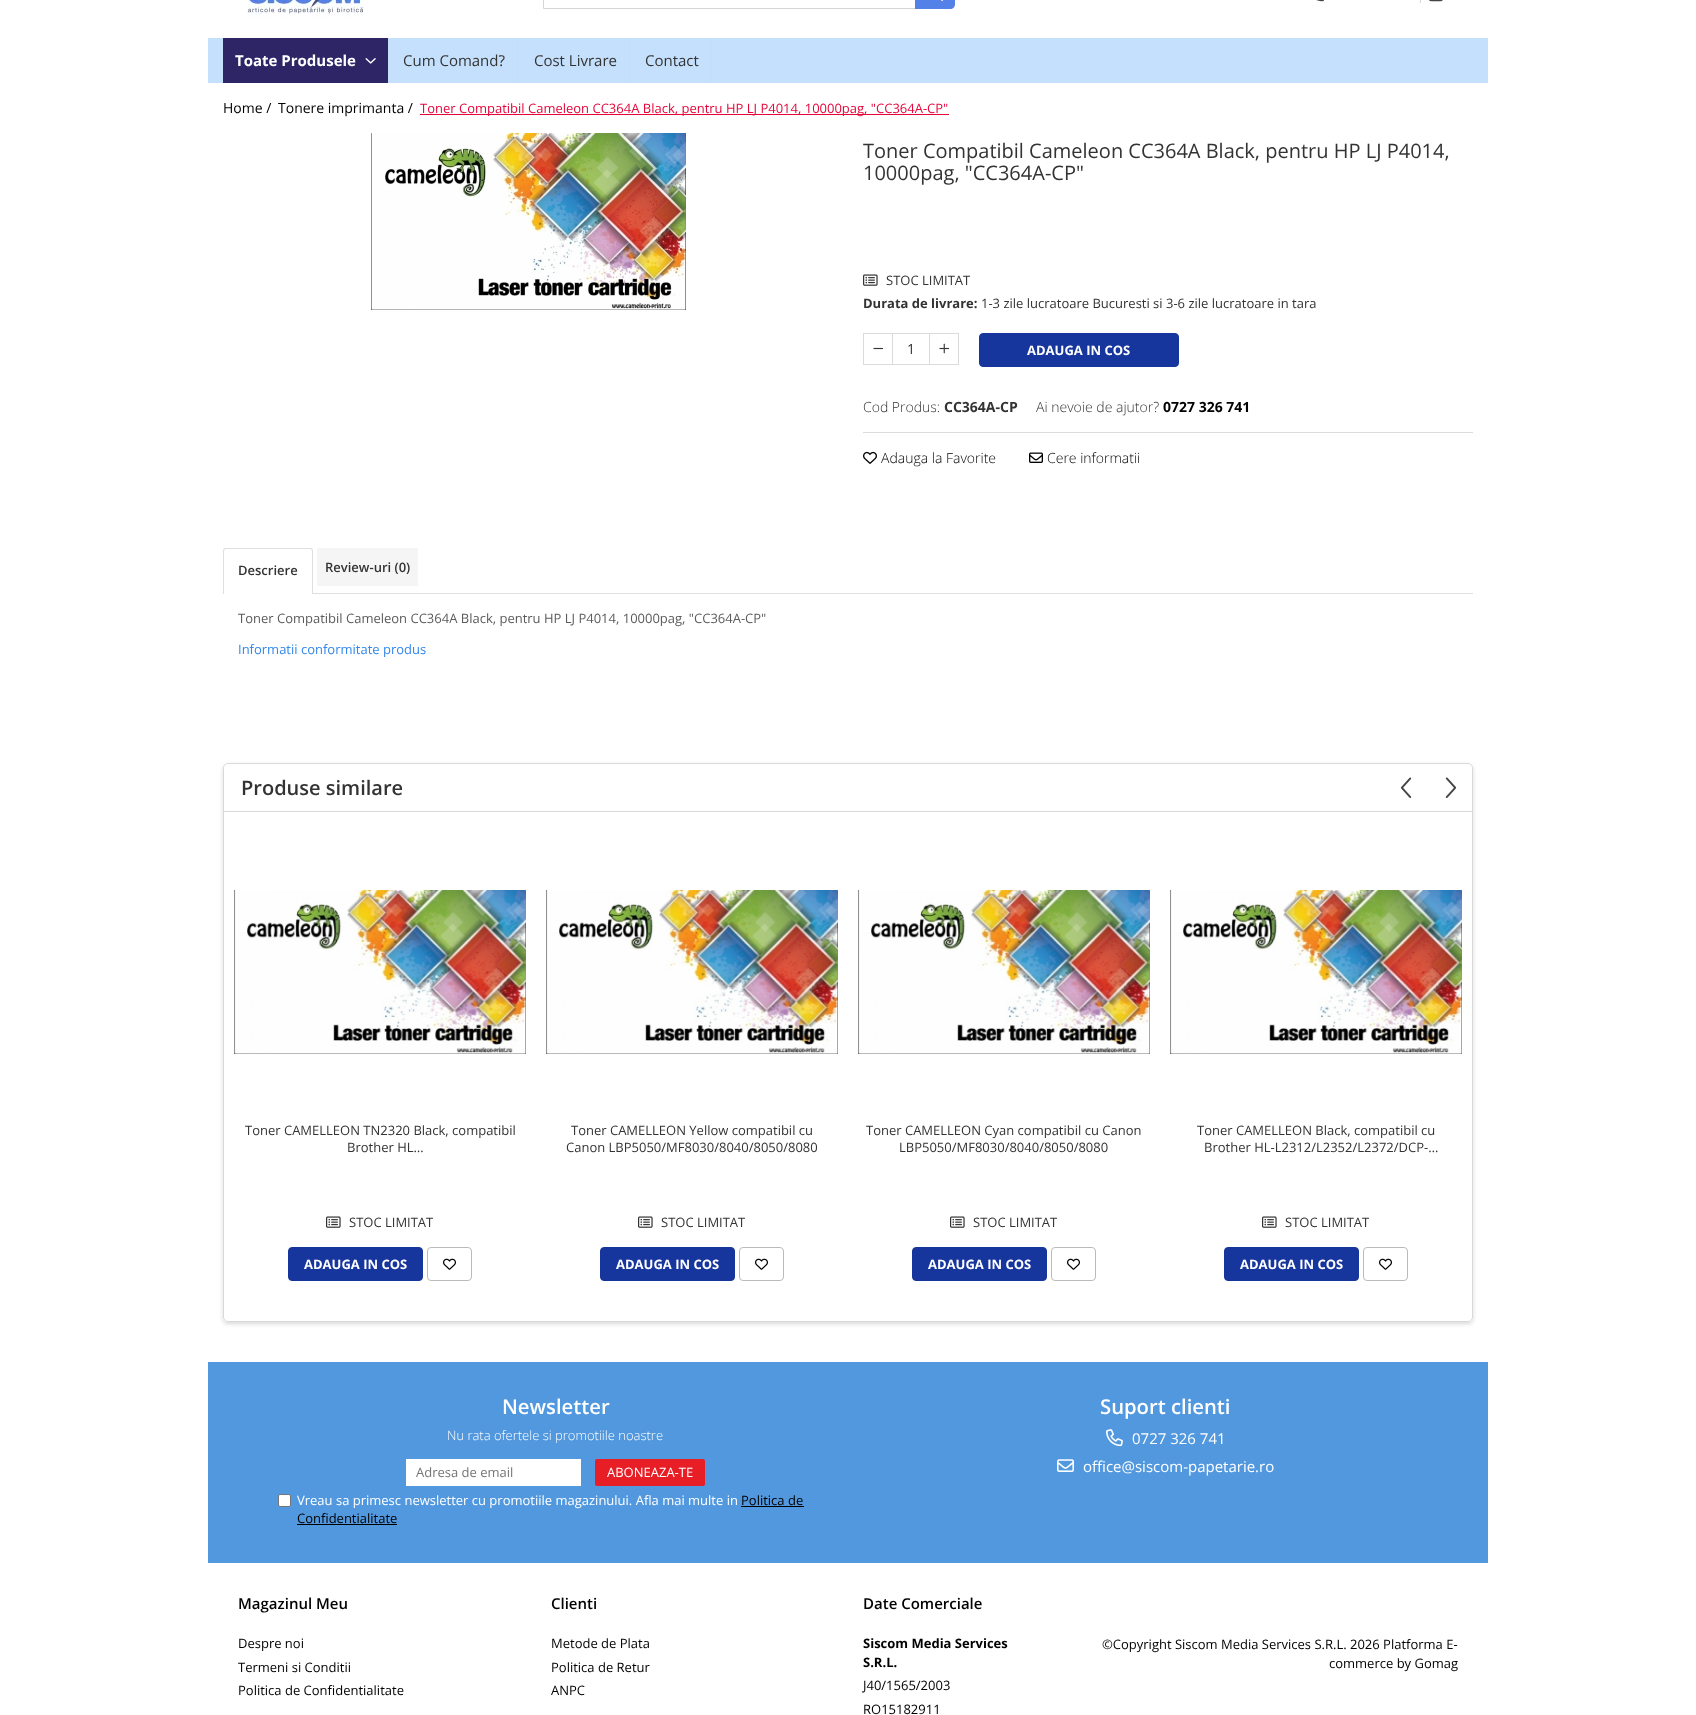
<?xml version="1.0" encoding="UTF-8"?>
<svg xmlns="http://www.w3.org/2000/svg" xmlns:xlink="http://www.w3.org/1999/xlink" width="1696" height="1715">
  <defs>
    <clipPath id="clip1"><path d="M 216 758 h 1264 v 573 h -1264 z m 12 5 h 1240 c 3 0 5 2 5 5 v 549 c 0 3 -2 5 -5 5 h -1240 c -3 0 -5 -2 -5 -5 v -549 c 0 -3 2 -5 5 -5 z" clip-rule="evenodd" /></clipPath>
  </defs>
  <rect width="100%" height="100%" fill="#ffffff" />
  <image x="247" y="0" width="118" height="19" xlink:href="image1.png" />
  <path d="M 543.5 -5.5 h 406.5 c 2.5 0 4.5 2 4.5 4.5 v 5 c 0 2.5 -2 4.5 -4.5 4.5 h -406.5 z" fill="none" stroke="#d5d5d5" />
  <path d="M 915 -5 h 35 c 3 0 5 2 5 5 v 4 c 0 3 -2 5 -5 5 h -35 z" fill="#5381e7" />
  <image x="941" y="0" width="2" height="1" xlink:href="image2.png" />
  <image x="1316" y="0" width="8" height="2" xlink:href="image3.png" />
  <rect x="1420" width="1" height="3" fill="#d5d5d5" />
  <image x="1428" y="0" width="15" height="2" xlink:href="image4.png" />
  <rect x="208" y="38" width="1280" height="45" fill="#c4e0fc" />
  <rect x="223" y="38" width="165" height="45" fill="#2d2566" />
  <image x="365" y="58" width="11" height="6" xlink:href="image5.png" />
  <rect x="517" y="38" width="1" height="45" fill="#d9d9d9" />
  <rect x="629" y="38" width="1" height="45" fill="#d9d9d9" />
  <rect x="711" y="38" width="1" height="45" fill="#d9d9d9" />
  <rect x="420" y="114" width="529" height="1" fill="#e60539" />
  <image x="371" y="133" width="315" height="177" xlink:href="image6.png" />
  <image x="863" y="274" width="15" height="12" xlink:href="image7.png" />
  <rect x="863.5" y="333.5" width="29" height="31" fill="none" stroke="#dbdbdb" />
  <image x="873" y="347" width="11" height="3" xlink:href="image8.png" />
  <rect x="893" y="333" width="36" height="1" fill="#dbdbdb" />
  <rect x="893" y="364" width="36" height="1" fill="#dbdbdb" />
  <rect x="929.5" y="333.5" width="29" height="31" fill="none" stroke="#dbdbdb" />
  <image x="939" y="343" width="11" height="11" xlink:href="image9.png" />
  <rect x="979.5" y="333.5" width="199" height="33" rx="3.5" fill="#16369e" stroke="#16369e" />
  <rect x="863" y="432" width="610" height="1" fill="#dbdbdb" />
  <image x="863" y="451" width="14" height="13" xlink:href="image10.png" />
  <image x="1029" y="452" width="14" height="11" xlink:href="image11.png" />
  <path d="M 226 548 h 84 c 2 0 3 1 3 3 v 43 h -90 v -43 c 0 -2 1 -3 3 -3 z m 0 1 h 84 c 1 0 2 1 2 2 v 43 h -88 v -43 c 0 -1 1 -2 2 -2 z" fill="#dfdfdf" fill-rule="evenodd" />
  <rect x="317" y="548" width="101" height="38" fill="#f5f5f5" />
  <rect x="313" y="593" width="1160" height="1" fill="#dfdfdf" />
  <g clip-path="url(#clip1)">
    <rect x="223" y="765" width="1250" height="559" rx="5" fill="#d9d9d9" filter="blur(2px)" />
  </g>
  <rect x="223.5" y="763.5" width="1249" height="558" rx="4.5" fill="none" stroke="#d9d9d9" />
  <rect x="224" y="811" width="1248" height="1" fill="#d9d9d9" />
  <rect x="224" y="764" width="196" height="47" rx="5" fill="#ffffff" />
  <image x="1400" y="777" width="12" height="21" xlink:href="image12.png" />
  <image x="1445" y="777" width="12" height="21" xlink:href="image13.png" />
  <image x="234" y="890" width="292" height="164" xlink:href="image14.png" />
  <image x="326" y="1216" width="15" height="12" xlink:href="image7.png" />
  <rect x="288.5" y="1247.5" width="134" height="33" rx="3.5" fill="#16369e" stroke="#16369e" />
  <rect x="427.5" y="1247.5" width="44" height="33" rx="3.5" fill="none" stroke="#bbbbbb" />
  <image x="443" y="1258" width="13" height="12" xlink:href="image15.png" />
  <image x="546" y="890" width="292" height="164" xlink:href="image14.png" />
  <image x="638" y="1216" width="15" height="12" xlink:href="image7.png" />
  <rect x="600.5" y="1247.5" width="134" height="33" rx="3.5" fill="#16369e" stroke="#16369e" />
  <rect x="739.5" y="1247.5" width="44" height="33" rx="3.5" fill="none" stroke="#bbbbbb" />
  <image x="755" y="1258" width="13" height="12" xlink:href="image15.png" />
  <image x="858" y="890" width="292" height="164" xlink:href="image14.png" />
  <image x="950" y="1216" width="15" height="12" xlink:href="image7.png" />
  <rect x="912.5" y="1247.5" width="134" height="33" rx="3.5" fill="#16369e" stroke="#16369e" />
  <rect x="1051.5" y="1247.5" width="44" height="33" rx="3.5" fill="none" stroke="#bbbbbb" />
  <image x="1067" y="1258" width="13" height="12" xlink:href="image15.png" />
  <image x="1170" y="890" width="292" height="164" xlink:href="image16.png" />
  <image x="1262" y="1216" width="15" height="12" xlink:href="image7.png" />
  <rect x="1224.5" y="1247.5" width="134" height="33" rx="3.5" fill="#16369e" stroke="#16369e" />
  <rect x="1363.5" y="1247.5" width="44" height="33" rx="3.5" fill="none" stroke="#bbbbbb" />
  <image x="1379" y="1258" width="13" height="12" xlink:href="image15.png" />
  <rect x="208" y="1362" width="1280" height="201" fill="#5298de" />
  <rect x="406" y="1459" width="175" height="27" fill="#ffffff" />
  <rect x="595" y="1459" width="110" height="27" rx="2" fill="#e71e26" />
  <rect x="278.5" y="1494.5" width="12" height="12" rx="1.5" fill="#ffffff" stroke="#767676" />
  <rect x="741" y="1506" width="63" height="1" fill="#000000" />
  <rect x="297" y="1524" width="100" height="1" fill="#000000" />
  <image x="1106" y="1429" width="17" height="18" xlink:href="image17.png" />
  <image x="1057" y="1459" width="17" height="13" xlink:href="image18.png" />
  <text x="235" y="66" style="font-family: Open Sans; font-size: 15px; font-weight: bold; fill: #ffffff">Toate Produsele</text>
  <text x="403" y="66" style="font-family: Open Sans; font-size: 15px; fill: #333333">Cum Comand?</text>
  <text x="534" y="66" style="font-family: Open Sans; font-size: 15px; fill: #333333">Cost Livrare</text>
  <text x="645" y="66" style="font-family: Open Sans; font-size: 15px; fill: #333333">Contact</text>
  <text x="223" y="113" style="font-family: Open Sans; font-size: 14px; fill: #000000">Home /</text>
  <text x="278" y="113" style="font-family: Open Sans; font-size: 14px; fill: #000000">Tonere imprimanta /</text>
  <text x="420" y="113" style="font-family: Open Sans; font-size: 13px; fill: #e60539">Toner Compatibil Cameleon CC364A Black, pentru HP LJ P4014, 10000pag, "CC364A-CP"</text>
  <text x="863" y="158" style="font-family: Open Sans; font-size: 20px; fill: #333333">Toner Compatibil Cameleon CC364A Black, pentru HP LJ P4014,</text>
  <text x="863" y="180" style="font-family: Open Sans; font-size: 20px; fill: #333333">10000pag, "CC364A-CP"</text>
  <text x="886" y="285" style="font-family: Open Sans; font-size: 13px; fill: #333333">STOC LIMITAT</text>
  <text x="863" y="308" style="font-family: Open Sans; font-size: 13px; font-weight: bold; fill: #333333">Durata de livrare:</text>
  <text x="981" y="308" style="font-family: Open Sans; font-size: 13px; fill: #333333">1-3 zile lucratoare Bucuresti si 3-6 zile lucratoare in tara</text>
  <text x="907" y="354" style="font-family: Open Sans; font-size: 14px; fill: #333333">1</text>
  <text x="1027" y="355" style="font-family: Open Sans; font-size: 13px; font-weight: bold; fill: #ffffff">ADAUGA IN COS</text>
  <text x="863" y="412" style="font-family: Open Sans; font-size: 14px; font-weight: 300; fill: #333333">Cod Produs:</text>
  <text x="944" y="412" style="font-family: Open Sans; font-size: 14px; font-weight: bold; fill: #333333">CC364A-CP</text>
  <text x="1036" y="412" style="font-family: Open Sans; font-size: 14px; font-weight: 300; fill: #333333">Ai nevoie de ajutor?</text>
  <text x="1163" y="412" style="font-family: Open Sans; font-size: 14px; font-weight: bold; fill: #000000">0727 326 741</text>
  <text x="881" y="463" style="font-family: Open Sans; font-size: 14px; font-weight: 300; fill: #000000">Adauga la Favorite</text>
  <text x="1047" y="463" style="font-family: Open Sans; font-size: 14px; font-weight: 300; fill: #000000">Cere informatii</text>
  <text x="238" y="575" style="font-family: Open Sans; font-size: 13px; font-weight: 600; fill: #333333">Descriere</text>
  <text x="325" y="572" style="font-family: Open Sans; font-size: 13px; font-weight: 600; fill: #333333">Review-uri (0)</text>
  <text x="238" y="623" style="font-family: Open Sans; font-size: 13px; fill: #5b5b5b">Toner Compatibil Cameleon CC364A Black, pentru HP LJ P4014, 10000pag, "CC364A-CP"</text>
  <text x="238" y="654" style="font-family: Open Sans; font-size: 13px; fill: #3388eb">Informatii conformitate produs</text>
  <text x="241" y="795" style="font-family: Open Sans; font-size: 20px; font-weight: 600; fill: #333333">Produse similare</text>
  <text x="245" y="1135" style="font-family: Open Sans; font-size: 13px; fill: #333333">Toner CAMELLEON TN2320 Black, compatibil</text>
  <text x="347" y="1152" style="font-family: Open Sans; font-size: 13px; fill: #333333">Brother HL…</text>
  <text x="349" y="1227" style="font-family: Open Sans; font-size: 13px; fill: #333333">STOC LIMITAT</text>
  <text x="304" y="1269" style="font-family: Open Sans; font-size: 13px; font-weight: bold; fill: #ffffff">ADAUGA IN COS</text>
  <text x="571" y="1135" style="font-family: Open Sans; font-size: 13px; fill: #333333">Toner CAMELLEON Yellow compatibil cu</text>
  <text x="566" y="1152" style="font-family: Open Sans; font-size: 13px; fill: #333333">Canon LBP5050/MF8030/8040/8050/8080</text>
  <text x="661" y="1227" style="font-family: Open Sans; font-size: 13px; fill: #333333">STOC LIMITAT</text>
  <text x="616" y="1269" style="font-family: Open Sans; font-size: 13px; font-weight: bold; fill: #ffffff">ADAUGA IN COS</text>
  <text x="866" y="1135" style="font-family: Open Sans; font-size: 13px; fill: #333333">Toner CAMELLEON Cyan compatibil cu Canon</text>
  <text x="899" y="1152" style="font-family: Open Sans; font-size: 13px; fill: #333333">LBP5050/MF8030/8040/8050/8080</text>
  <text x="973" y="1227" style="font-family: Open Sans; font-size: 13px; fill: #333333">STOC LIMITAT</text>
  <text x="928" y="1269" style="font-family: Open Sans; font-size: 13px; font-weight: bold; fill: #ffffff">ADAUGA IN COS</text>
  <text x="1197" y="1135" style="font-family: Open Sans; font-size: 13px; fill: #333333">Toner CAMELLEON Black, compatibil cu</text>
  <text x="1204" y="1152" style="font-family: Open Sans; font-size: 13px; fill: #333333">Brother HL-L2312/L2352/L2372/DCP-…</text>
  <text x="1285" y="1227" style="font-family: Open Sans; font-size: 13px; fill: #333333">STOC LIMITAT</text>
  <text x="1240" y="1269" style="font-family: Open Sans; font-size: 13px; font-weight: bold; fill: #ffffff">ADAUGA IN COS</text>
  <text x="502" y="1414" style="font-family: Open Sans; font-size: 20.25px; font-weight: 600; fill: #ffffff">Newsletter</text>
  <text x="447" y="1440" style="font-family: Open Sans; font-size: 13px; font-weight: 300; fill: #ffffff">Nu rata ofertele si promotiile noastre</text>
  <text x="416" y="1477" style="font-family: Open Sans; font-size: 13px; fill: #757575">Adresa de email</text>
  <text x="607" y="1477" style="font-family: Open Sans; font-size: 13px; fill: #ffffff">ABONEAZA-TE</text>
  <text x="297" y="1505" style="font-family: Open Sans; font-size: 13px; fill: #ffffff">Vreau sa primesc newsletter cu promotiile magazinului. Afla mai multe in</text>
  <text x="741" y="1505" style="font-family: Open Sans; font-size: 13px; fill: #000000">Politica de</text>
  <text x="297" y="1523" style="font-family: Open Sans; font-size: 13px; fill: #000000">Confidentialitate</text>
  <text x="1100" y="1414" style="font-family: Open Sans; font-size: 20.25px; font-weight: 600; fill: #ffffff">Suport clienti</text>
  <text x="1132" y="1444" style="font-family: Open Sans; font-size: 15px; fill: #ffffff">0727 326 741</text>
  <text x="1083" y="1472" style="font-family: Open Sans; font-size: 15px; fill: #ffffff">office@siscom-papetarie.ro</text>
  <text x="238" y="1609" style="font-family: Open Sans; font-size: 15px; font-weight: 600; fill: #000000">Magazinul Meu</text>
  <text x="238" y="1648" style="font-family: Open Sans; font-size: 13px; fill: #000000">Despre noi</text>
  <text x="238" y="1672" style="font-family: Open Sans; font-size: 13px; fill: #000000">Termeni si Conditii</text>
  <text x="238" y="1695" style="font-family: Open Sans; font-size: 13px; fill: #000000">Politica de Confidentialitate</text>
  <text x="551" y="1609" style="font-family: Open Sans; font-size: 15px; font-weight: 600; fill: #000000">Clienti</text>
  <text x="551" y="1648" style="font-family: Open Sans; font-size: 13px; fill: #000000">Metode de Plata</text>
  <text x="551" y="1672" style="font-family: Open Sans; font-size: 13px; fill: #000000">Politica de Retur</text>
  <text x="551" y="1695" style="font-family: Open Sans; font-size: 13px; fill: #000000">ANPC</text>
  <text x="863" y="1609" style="font-family: Open Sans; font-size: 15px; font-weight: 600; fill: #000000">Date Comerciale</text>
  <text x="863" y="1648" style="font-family: Open Sans; font-size: 13px; font-weight: bold; fill: #000000">Siscom Media Services</text>
  <text x="863" y="1667" style="font-family: Open Sans; font-size: 13px; font-weight: bold; fill: #000000">S.R.L.</text>
  <text x="863" y="1690" style="font-family: Open Sans; font-size: 13px; fill: #000000">J40/1565/2003</text>
  <text x="863" y="1714" style="font-family: Open Sans; font-size: 13px; fill: #000000">RO15182911</text>
  <text x="1102" y="1649" style="font-family: Open Sans; font-size: 13px; fill: #000000">©Copyright Siscom Media Services S.R.L. 2026 Platforma E-</text>
  <text x="1329" y="1668" style="font-family: Open Sans; font-size: 13px; fill: #000000">commerce by Gomag</text>
</svg>
